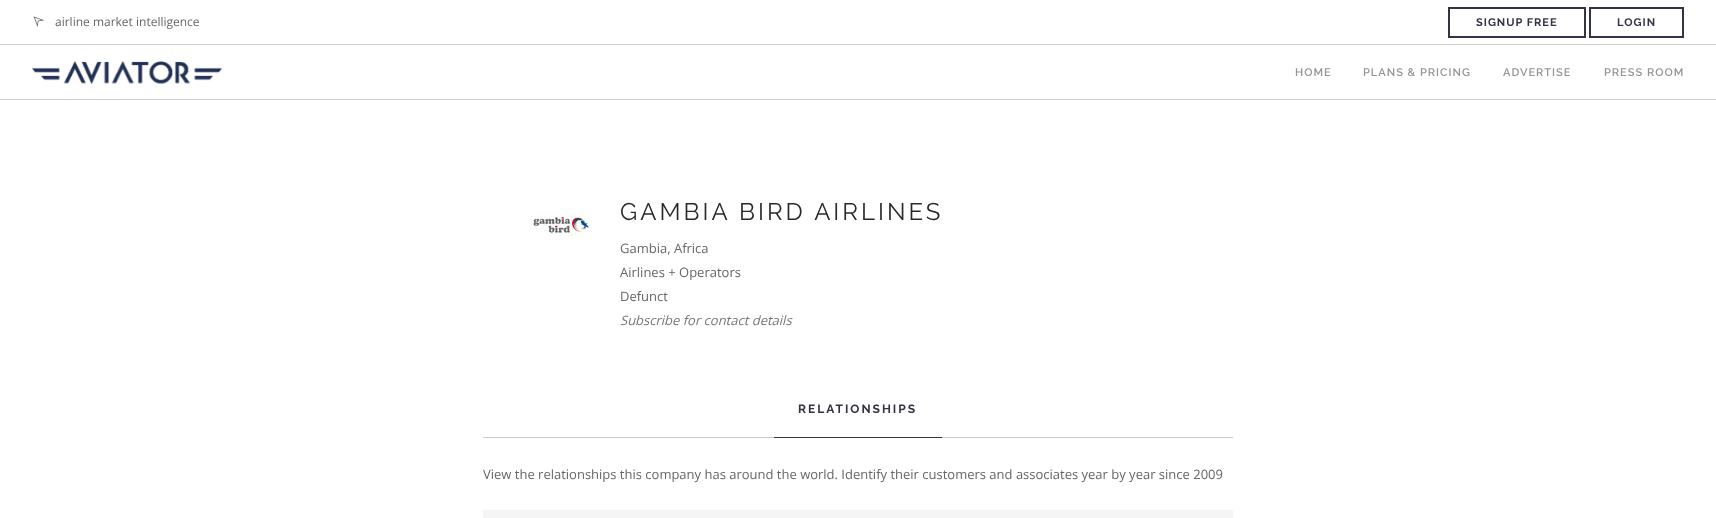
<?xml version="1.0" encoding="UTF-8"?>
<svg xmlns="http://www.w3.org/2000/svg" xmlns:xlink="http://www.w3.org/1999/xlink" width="1716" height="518">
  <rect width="100%" height="100%" fill="#ffffff" />
  <rect y="44" width="1716" height="1" fill="#cccccc" />
  <image x="33" y="16" width="11" height="11" xlink:href="image1.png" />
  <rect x="1449" y="8" width="136" height="29" fill="none" stroke="#333347" stroke-width="2" />
  <rect x="1590" y="8" width="93" height="29" fill="none" stroke="#333347" stroke-width="2" />
  <rect y="99" width="1716" height="1" fill="#cccccc" />
  <image x="32" y="61" width="190" height="23" xlink:href="image2.png" />
  <image x="530" y="212" width="60" height="24" xlink:href="image3.png" />
  <rect x="483" y="437" width="750" height="1" fill="#cccccc" />
  <rect x="774" y="437" width="168" height="1" fill="#333347" />
  <rect x="483" y="510" width="750" height="8" fill="#f5f5f5" />
  <text x="55" y="26" style="font-family: Open Sans; font-size: 12px; fill: #666666">airline market intelligence</text>
  <text x="1476" y="26" style="font-family: Raleway; font-size: 11px; font-weight: bold; letter-spacing: 1px; fill: #333347">SIGNUP FREE</text>
  <text x="1617" y="26" style="font-family: Raleway; font-size: 11px; font-weight: bold; letter-spacing: 1px; fill: #333347">LOGIN</text>
  <text x="1295" y="76" style="font-family: Raleway; font-size: 11px; font-weight: 600; letter-spacing: 1px; fill: #949494">HOME</text>
  <text x="1363" y="76" style="font-family: Raleway; font-size: 11px; font-weight: 600; letter-spacing: 1px; fill: #949494">PLANS &amp; PRICING</text>
  <text x="1503" y="76" style="font-family: Raleway; font-size: 11px; font-weight: 600; letter-spacing: 1px; fill: #949494">ADVERTISE</text>
  <text x="1604" y="76" style="font-family: Raleway; font-size: 11px; font-weight: 600; letter-spacing: 1px; fill: #949494">PRESS ROOM</text>
  <text x="620" y="220" style="font-family: Raleway; font-size: 24px; letter-spacing: 3px; fill: #292929">GAMBIA BIRD AIRLINES</text>
  <text x="620" y="253" style="font-family: Open Sans; font-size: 13px; fill: #666666">Gambia, Africa</text>
  <text x="620" y="277" style="font-family: Open Sans; font-size: 13px; fill: #666666">Airlines + Operators</text>
  <text x="620" y="301" style="font-family: Open Sans; font-size: 13px; fill: #666666">Defunct</text>
  <text x="620" y="325" style="font-family: Open Sans; font-size: 13px; font-style: italic; fill: #777777">Subscribe for contact details</text>
  <text x="798" y="413" style="font-family: Raleway; font-size: 12px; font-weight: bold; letter-spacing: 2px; fill: #333347">RELATIONSHIPS</text>
  <text x="483" y="479" style="font-family: Open Sans; font-size: 13px; fill: #666666">View the relationships this company has around the world. Identify their customers and associates year by year since 2009</text>
</svg>
